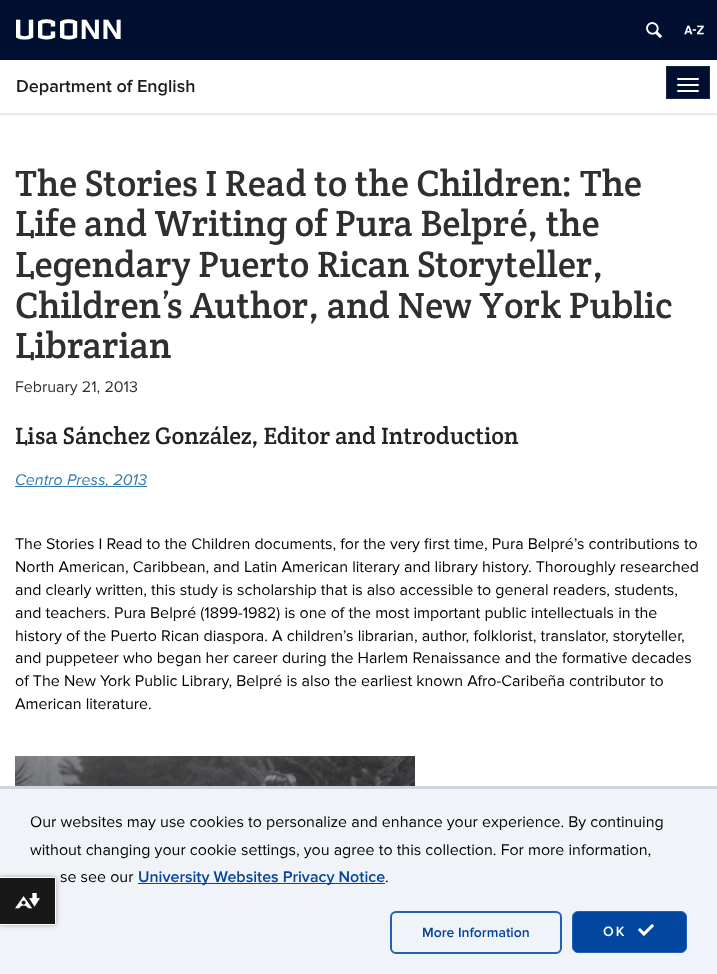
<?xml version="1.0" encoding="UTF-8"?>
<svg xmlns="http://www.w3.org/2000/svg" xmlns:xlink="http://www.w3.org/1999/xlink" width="717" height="974">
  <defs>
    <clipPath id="clip1"><rect x="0" y="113" width="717" height="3" /></clipPath>
    <clipPath id="clip2"><path d="M 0 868 h 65 v 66 h -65 z m 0 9 h 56 v 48 h -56 z" clip-rule="evenodd" /></clipPath>
  </defs>
  <rect width="100%" height="100%" fill="#ffffff" />
  <rect width="717" height="60" fill="#000e2f" />
  <image x="646" y="22" width="16" height="16" xlink:href="image1.png" />
  <image x="684" y="25" width="20" height="10" xlink:href="image2.png" />
  <g clip-path="url(#clip1)">
    <rect y="62" width="717" height="53" fill="#000000" fill-opacity="0.1" filter="blur(1px)" />
  </g>
  <rect x="666.5" y="66.5" width="43" height="32" fill="#000e2f" stroke="#1a2644" />
  <rect x="677" y="78" width="22" height="2" rx="1" fill="#ffffff" />
  <rect x="677" y="84" width="22" height="2" rx="1" fill="#ffffff" />
  <rect x="677" y="90" width="22" height="2" rx="1" fill="#ffffff" />
  <rect x="15" y="486" width="132" height="1" fill="#327aae" />
  <image x="15" y="756" width="400" height="30" xlink:href="image3.png" />
  <rect y="789" width="717" height="185" fill="#f0f3f7" />
  <rect y="786" width="717" height="3" fill="#cfd5dd" />
  <rect x="138" y="883" width="247" height="1" fill="#03469f" />
  <rect x="391" y="912" width="170" height="41" rx="5" fill="none" stroke="#2061b6" stroke-width="2" />
  <rect x="572.5" y="911.5" width="114" height="41" rx="5.5" fill="#03469f" stroke="#2061b6" />
  <image x="638" y="924" width="16" height="12" xlink:href="image4.png" />
  <g clip-path="url(#clip2)">
    <rect y="877" width="56" height="48" fill="#000000" fill-opacity="0.3" filter="blur(2.5px)" />
  </g>
  <rect y="878" width="55" height="46" fill="#000000" fill-opacity="0.9" />
  <rect y="877" width="56" height="1" fill="#ffffff" />
  <rect x="55" y="877" width="1" height="48" fill="#ffffff" />
  <rect y="924" width="56" height="1" fill="#ffffff" />
  <image x="15" y="893" width="25" height="16" xlink:href="image5.png" />
  <text x="16" y="39" style="font-family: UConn; font-size: 32px; letter-spacing: 3px; fill: #ffffff">UCONN</text>
  <text x="16" y="92" style="font-family: Proxima Nova; font-size: 18px; font-weight: 600; fill: #1c1c1c">Department of English</text>
  <text x="15" y="196" style="font-family: Crete Round; font-size: 37px; fill: #2f2f2f">The Stories I Read to the Children: The</text>
  <text x="15" y="236" style="font-family: Crete Round; font-size: 37px; fill: #2f2f2f">Life and Writing of Pura Belpré, the</text>
  <text x="15" y="277" style="font-family: Crete Round; font-size: 37px; fill: #2f2f2f">Legendary Puerto Rican Storyteller,</text>
  <text x="15" y="318" style="font-family: Crete Round; font-size: 37px; fill: #2f2f2f">Children’s Author, and New York Public</text>
  <text x="15" y="358" style="font-family: Crete Round; font-size: 37px; fill: #2f2f2f">Librarian</text>
  <text x="15" y="392" style="font-family: Proxima Nova; font-size: 16px; fill: #2f2f2f">February 21, 2013</text>
  <text x="15" y="444" style="font-family: Crete Round; font-size: 24px; fill: #222222">Lisa Sánchez González, Editor and Introduction</text>
  <text x="15" y="485" style="font-family: Proxima Nova; font-size: 16px; font-style: italic; fill: #327aae">Centro Press, 2013</text>
  <text x="15" y="549" style="font-family: Proxima Nova; font-size: 16px; fill: #000000">The Stories I Read to the Children documents, for the very first time, Pura Belpré’s contributions to</text>
  <text x="15" y="572" style="font-family: Proxima Nova; font-size: 16px; fill: #000000">North American, Caribbean, and Latin American literary and library history. Thoroughly researched</text>
  <text x="15" y="595" style="font-family: Proxima Nova; font-size: 16px; fill: #000000">and clearly written, this study is scholarship that is also accessible to general readers, students,</text>
  <text x="15" y="618" style="font-family: Proxima Nova; font-size: 16px; fill: #000000">and teachers. Pura Belpré (1899-1982) is one of the most important public intellectuals in the</text>
  <text x="15" y="641" style="font-family: Proxima Nova; font-size: 16px; fill: #000000">history of the Puerto Rican diaspora. A children’s librarian, author, folklorist, translator, storyteller,</text>
  <text x="15" y="663" style="font-family: Proxima Nova; font-size: 16px; fill: #000000">and puppeteer who began her career during the Harlem Renaissance and the formative decades</text>
  <text x="15" y="686" style="font-family: Proxima Nova; font-size: 16px; fill: #000000">of The New York Public Library, Belpré is also the earliest known Afro-Caribeña contributor to</text>
  <text x="15" y="709" style="font-family: Proxima Nova; font-size: 16px; fill: #000000">American literature.</text>
  <text x="30" y="827" style="font-family: Proxima Nova; font-size: 16px; fill: #000000">Our websites may use cookies to personalize and enhance your experience. By continuing</text>
  <text x="30" y="855" style="font-family: Proxima Nova; font-size: 16px; fill: #000000">without changing your cookie settings, you agree to this collection. For more information,</text>
  <text x="60" y="882" style="font-family: Proxima Nova; font-size: 16px; fill: #000000">se see our</text>
  <text x="138" y="882" style="font-family: Proxima Nova; font-size: 16px; font-weight: 600; fill: #03469f">University Websites Privacy Notice</text>
  <text x="385" y="882" style="font-family: Proxima Nova; font-size: 16px; fill: #000000">.</text>
  <text x="422" y="937" style="font-family: Proxima Nova; font-size: 14px; font-weight: 600; fill: #03469f">More Information</text>
  <text x="603" y="936" style="font-family: Proxima Nova; font-size: 14px; font-weight: 600; letter-spacing: 2px; fill: #ffffff">OK</text>
</svg>
